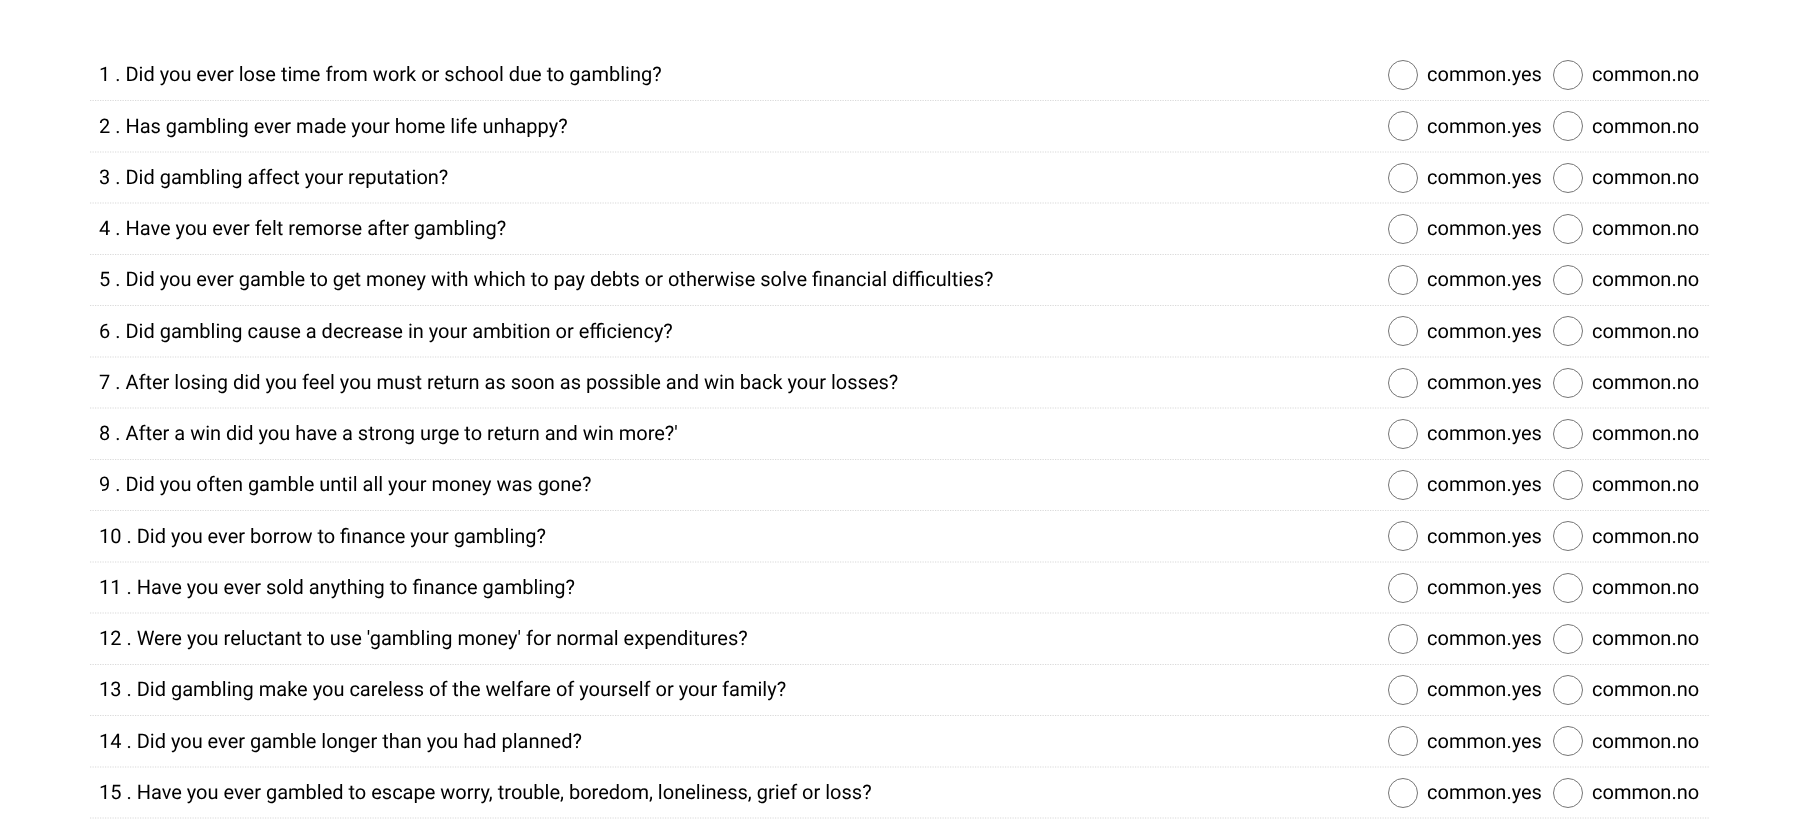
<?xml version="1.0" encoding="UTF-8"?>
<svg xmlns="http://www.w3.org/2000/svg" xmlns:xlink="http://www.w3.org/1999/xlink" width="1798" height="821">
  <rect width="100%" height="100%" fill="#ffffff" />
  <path d="M 90 100.5 h 1620" fill="none" stroke="#dadada" stroke-width="1.2" stroke-dasharray="1.25 1.25" />
  <circle cx="1403" cy="75" r="14.5" fill="none" stroke="#767676" />
  <circle cx="1568" cy="75" r="14.5" fill="none" stroke="#767676" />
  <path d="M 90 152 h 1620" fill="none" stroke="#dadada" stroke-width="1.2" stroke-dasharray="1.25 1.25" />
  <circle cx="1403" cy="126" r="14.5" fill="none" stroke="#767676" />
  <circle cx="1568" cy="126" r="14.5" fill="none" stroke="#767676" />
  <path d="M 90 203 h 1620" fill="none" stroke="#dadada" stroke-width="1.2" stroke-dasharray="1.25 1.25" />
  <circle cx="1403" cy="178" r="14.5" fill="none" stroke="#767676" />
  <circle cx="1568" cy="178" r="14.5" fill="none" stroke="#767676" />
  <path d="M 90 254.5 h 1620" fill="none" stroke="#dadada" stroke-width="1.2" stroke-dasharray="1.25 1.25" />
  <circle cx="1403" cy="229" r="14.5" fill="none" stroke="#767676" />
  <circle cx="1568" cy="229" r="14.5" fill="none" stroke="#767676" />
  <path d="M 90 305.5 h 1620" fill="none" stroke="#dadada" stroke-width="1.2" stroke-dasharray="1.25 1.25" />
  <circle cx="1403" cy="280" r="14.5" fill="none" stroke="#767676" />
  <circle cx="1568" cy="280" r="14.5" fill="none" stroke="#767676" />
  <path d="M 90 357 h 1620" fill="none" stroke="#dadada" stroke-width="1.2" stroke-dasharray="1.25 1.25" />
  <circle cx="1403" cy="331" r="14.5" fill="none" stroke="#767676" />
  <circle cx="1568" cy="331" r="14.5" fill="none" stroke="#767676" />
  <path d="M 90 408 h 1620" fill="none" stroke="#dadada" stroke-width="1.2" stroke-dasharray="1.25 1.25" />
  <circle cx="1403" cy="383" r="14.5" fill="none" stroke="#767676" />
  <circle cx="1568" cy="383" r="14.5" fill="none" stroke="#767676" />
  <path d="M 90 459.5 h 1620" fill="none" stroke="#dadada" stroke-width="1.2" stroke-dasharray="1.25 1.25" />
  <circle cx="1403" cy="434" r="14.5" fill="none" stroke="#767676" />
  <circle cx="1568" cy="434" r="14.5" fill="none" stroke="#767676" />
  <path d="M 90 510.5 h 1620" fill="none" stroke="#dadada" stroke-width="1.2" stroke-dasharray="1.25 1.25" />
  <circle cx="1403" cy="485" r="14.5" fill="none" stroke="#767676" />
  <circle cx="1568" cy="485" r="14.5" fill="none" stroke="#767676" />
  <path d="M 90 562 h 1620" fill="none" stroke="#dadada" stroke-width="1.2" stroke-dasharray="1.25 1.25" />
  <circle cx="1403" cy="536" r="14.5" fill="none" stroke="#767676" />
  <circle cx="1568" cy="536" r="14.5" fill="none" stroke="#767676" />
  <path d="M 90 613 h 1620" fill="none" stroke="#dadada" stroke-width="1.2" stroke-dasharray="1.25 1.25" />
  <circle cx="1403" cy="588" r="14.5" fill="none" stroke="#767676" />
  <circle cx="1568" cy="588" r="14.5" fill="none" stroke="#767676" />
  <path d="M 90 664.5 h 1620" fill="none" stroke="#dadada" stroke-width="1.2" stroke-dasharray="1.25 1.25" />
  <circle cx="1403" cy="639" r="14.5" fill="none" stroke="#767676" />
  <circle cx="1568" cy="639" r="14.5" fill="none" stroke="#767676" />
  <path d="M 90 715.5 h 1620" fill="none" stroke="#dadada" stroke-width="1.2" stroke-dasharray="1.25 1.25" />
  <circle cx="1403" cy="690" r="14.5" fill="none" stroke="#767676" />
  <circle cx="1568" cy="690" r="14.5" fill="none" stroke="#767676" />
  <path d="M 90 767 h 1620" fill="none" stroke="#dadada" stroke-width="1.2" stroke-dasharray="1.25 1.25" />
  <circle cx="1403" cy="741" r="14.5" fill="none" stroke="#767676" />
  <circle cx="1568" cy="741" r="14.5" fill="none" stroke="#767676" />
  <path d="M 90 818 h 1620" fill="none" stroke="#dadada" stroke-width="1.2" stroke-dasharray="1.25 1.25" />
  <circle cx="1403" cy="793" r="14.5" fill="none" stroke="#767676" />
  <circle cx="1568" cy="793" r="14.5" fill="none" stroke="#767676" />
  <text x="99" y="81" style="font-family: Roboto; font-size: 20px; fill: #000000">1 . Did you ever lose time from work or school due to gambling?</text>
  <text x="1427" y="81" style="font-family: Roboto; font-size: 20px; fill: #000000">common.yes</text>
  <text x="1592" y="81" style="font-family: Roboto; font-size: 20px; fill: #000000">common.no</text>
  <text x="99" y="133" style="font-family: Roboto; font-size: 20px; fill: #000000">2 . Has gambling ever made your home life unhappy?</text>
  <text x="1427" y="133" style="font-family: Roboto; font-size: 20px; fill: #000000">common.yes</text>
  <text x="1592" y="133" style="font-family: Roboto; font-size: 20px; fill: #000000">common.no</text>
  <text x="99" y="184" style="font-family: Roboto; font-size: 20px; fill: #000000">3 . Did gambling affect your reputation?</text>
  <text x="1427" y="184" style="font-family: Roboto; font-size: 20px; fill: #000000">common.yes</text>
  <text x="1592" y="184" style="font-family: Roboto; font-size: 20px; fill: #000000">common.no</text>
  <text x="99" y="235" style="font-family: Roboto; font-size: 20px; fill: #000000">4 . Have you ever felt remorse after gambling?</text>
  <text x="1427" y="235" style="font-family: Roboto; font-size: 20px; fill: #000000">common.yes</text>
  <text x="1592" y="235" style="font-family: Roboto; font-size: 20px; fill: #000000">common.no</text>
  <text x="99" y="286" style="font-family: Roboto; font-size: 20px; fill: #000000">5 . Did you ever gamble to get money with which to pay debts or otherwise solve financial difficulties?</text>
  <text x="1427" y="286" style="font-family: Roboto; font-size: 20px; fill: #000000">common.yes</text>
  <text x="1592" y="286" style="font-family: Roboto; font-size: 20px; fill: #000000">common.no</text>
  <text x="99" y="338" style="font-family: Roboto; font-size: 20px; fill: #000000">6 . Did gambling cause a decrease in your ambition or efficiency?</text>
  <text x="1427" y="338" style="font-family: Roboto; font-size: 20px; fill: #000000">common.yes</text>
  <text x="1592" y="338" style="font-family: Roboto; font-size: 20px; fill: #000000">common.no</text>
  <text x="99" y="389" style="font-family: Roboto; font-size: 20px; fill: #000000">7 . After losing did you feel you must return as soon as possible and win back your losses?</text>
  <text x="1427" y="389" style="font-family: Roboto; font-size: 20px; fill: #000000">common.yes</text>
  <text x="1592" y="389" style="font-family: Roboto; font-size: 20px; fill: #000000">common.no</text>
  <text x="99" y="440" style="font-family: Roboto; font-size: 20px; fill: #000000">8 . After a win did you have a strong urge to return and win more?'</text>
  <text x="1427" y="440" style="font-family: Roboto; font-size: 20px; fill: #000000">common.yes</text>
  <text x="1592" y="440" style="font-family: Roboto; font-size: 20px; fill: #000000">common.no</text>
  <text x="99" y="491" style="font-family: Roboto; font-size: 20px; fill: #000000">9 . Did you often gamble until all your money was gone?</text>
  <text x="1427" y="491" style="font-family: Roboto; font-size: 20px; fill: #000000">common.yes</text>
  <text x="1592" y="491" style="font-family: Roboto; font-size: 20px; fill: #000000">common.no</text>
  <text x="99" y="543" style="font-family: Roboto; font-size: 20px; fill: #000000">10 . Did you ever borrow to finance your gambling?</text>
  <text x="1427" y="543" style="font-family: Roboto; font-size: 20px; fill: #000000">common.yes</text>
  <text x="1592" y="543" style="font-family: Roboto; font-size: 20px; fill: #000000">common.no</text>
  <text x="99" y="594" style="font-family: Roboto; font-size: 20px; fill: #000000">11 . Have you ever sold anything to finance gambling?</text>
  <text x="1427" y="594" style="font-family: Roboto; font-size: 20px; fill: #000000">common.yes</text>
  <text x="1592" y="594" style="font-family: Roboto; font-size: 20px; fill: #000000">common.no</text>
  <text x="99" y="645" style="font-family: Roboto; font-size: 20px; fill: #000000">12 . Were you reluctant to use 'gambling money' for normal expenditures?</text>
  <text x="1427" y="645" style="font-family: Roboto; font-size: 20px; fill: #000000">common.yes</text>
  <text x="1592" y="645" style="font-family: Roboto; font-size: 20px; fill: #000000">common.no</text>
  <text x="99" y="696" style="font-family: Roboto; font-size: 20px; fill: #000000">13 . Did gambling make you careless of the welfare of yourself or your family?</text>
  <text x="1427" y="696" style="font-family: Roboto; font-size: 20px; fill: #000000">common.yes</text>
  <text x="1592" y="696" style="font-family: Roboto; font-size: 20px; fill: #000000">common.no</text>
  <text x="99" y="748" style="font-family: Roboto; font-size: 20px; fill: #000000">14 . Did you ever gamble longer than you had planned?</text>
  <text x="1427" y="748" style="font-family: Roboto; font-size: 20px; fill: #000000">common.yes</text>
  <text x="1592" y="748" style="font-family: Roboto; font-size: 20px; fill: #000000">common.no</text>
  <text x="99" y="799" style="font-family: Roboto; font-size: 20px; fill: #000000">15 . Have you ever gambled to escape worry, trouble, boredom, loneliness, grief or loss?</text>
  <text x="1427" y="799" style="font-family: Roboto; font-size: 20px; fill: #000000">common.yes</text>
  <text x="1592" y="799" style="font-family: Roboto; font-size: 20px; fill: #000000">common.no</text>
</svg>
